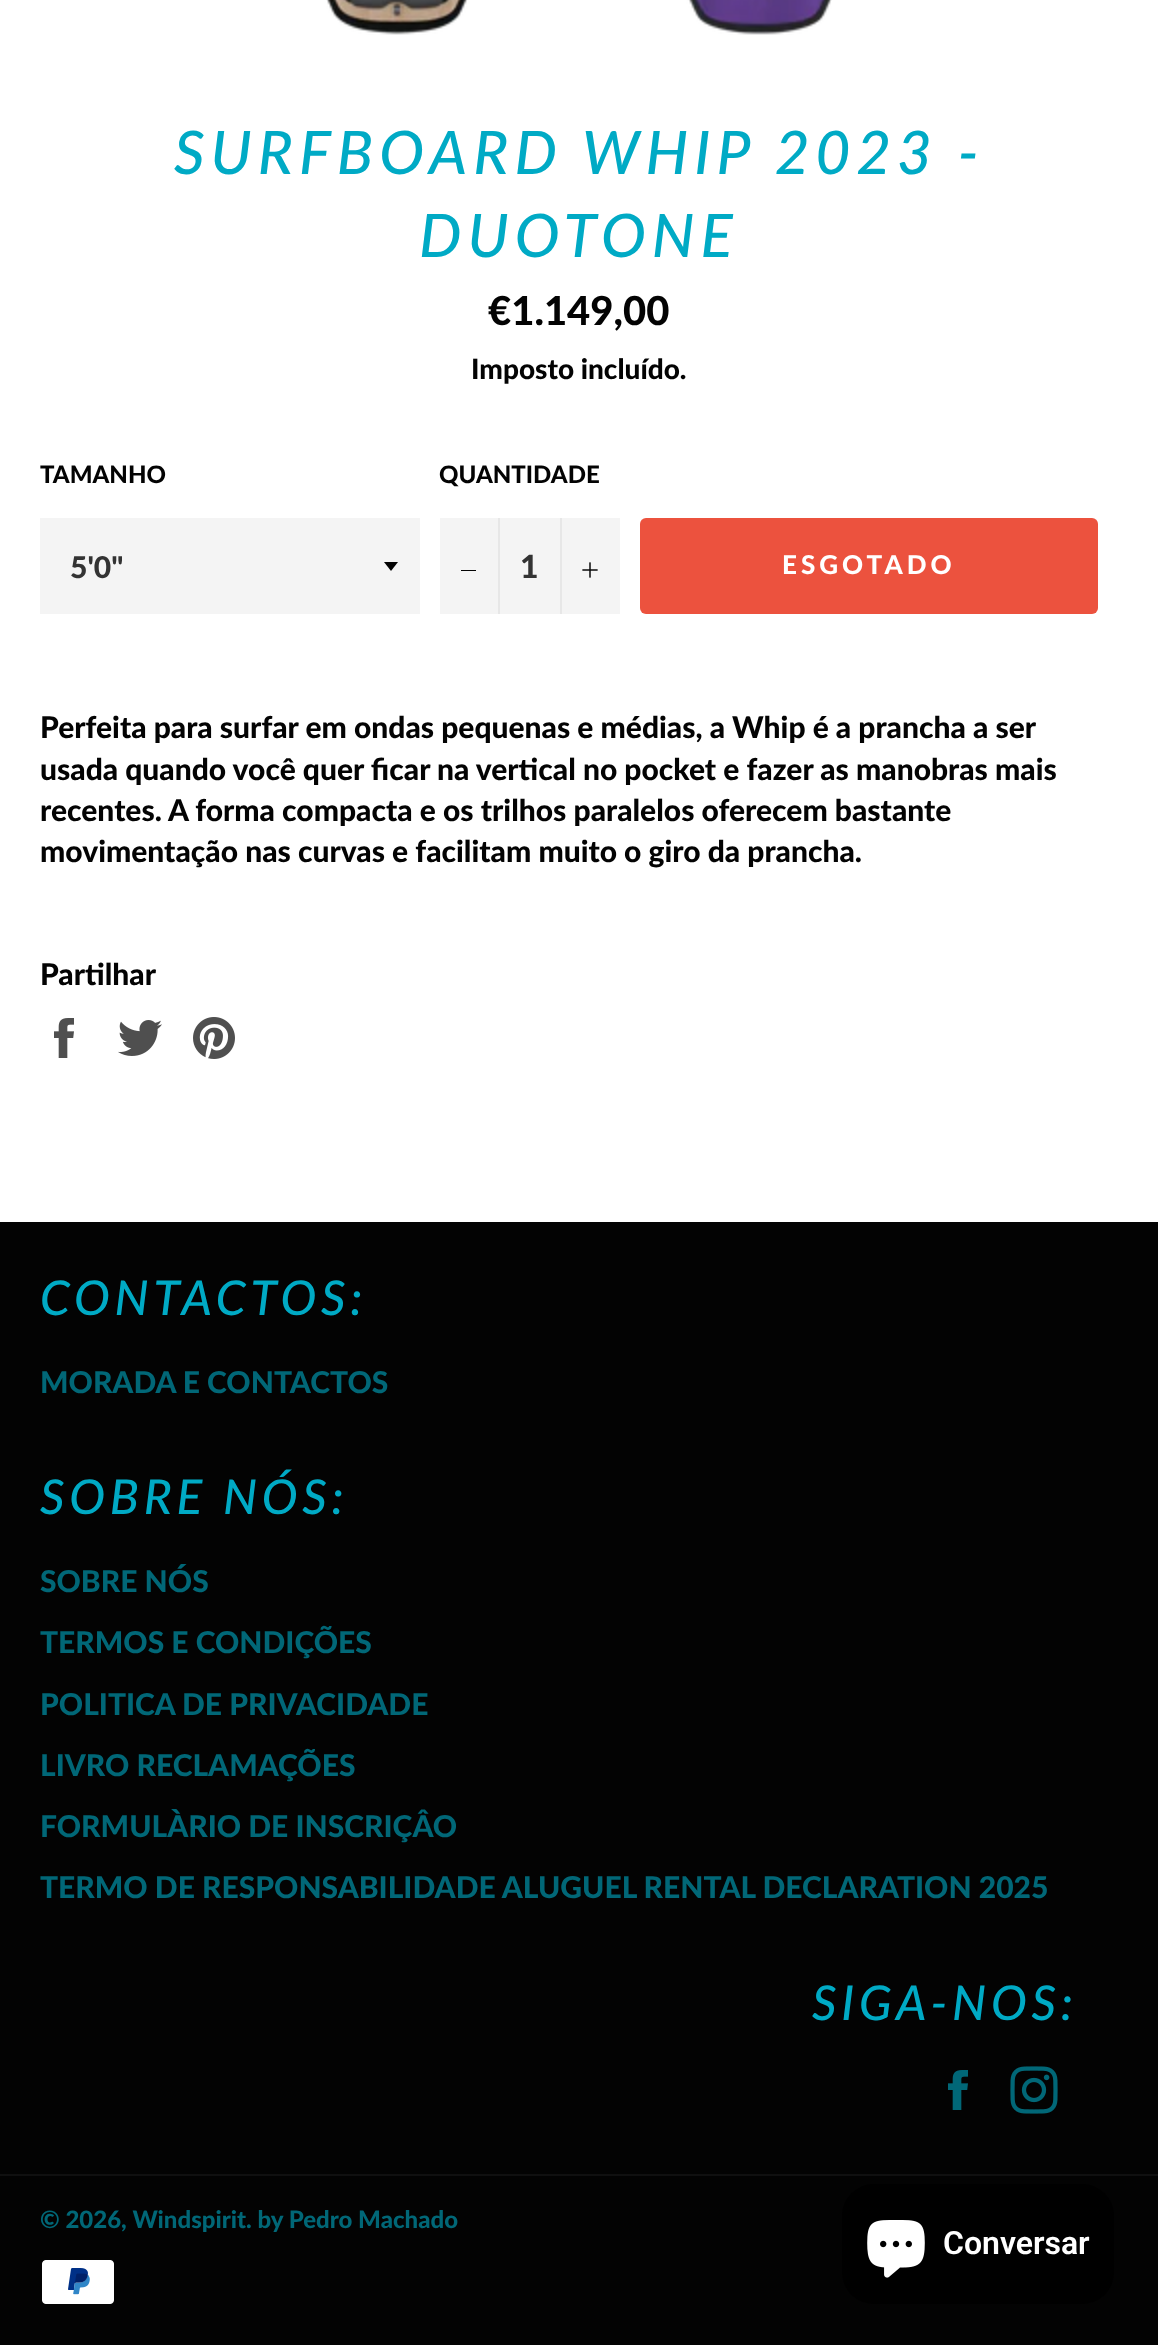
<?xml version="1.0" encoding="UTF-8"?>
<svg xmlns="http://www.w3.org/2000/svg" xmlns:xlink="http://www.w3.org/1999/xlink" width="1158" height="2345">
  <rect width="100%" height="100%" fill="#ffffff" />
  <image x="326" y="0" width="506" height="35" xlink:href="image1.png" />
  <rect x="40" y="518" width="380" height="96" fill="#f4f4f4" />
  <path d="M 384 562 l 7 9 l 7 -9 z" fill="#030303" />
  <rect x="440" y="518" width="180" height="96" fill="#f4f4f4" />
  <rect x="498" y="518" width="2" height="96" fill="#e7e7e7" />
  <rect x="461" y="570" width="15" height="1" fill="#030303" />
  <rect x="560" y="518" width="2" height="96" fill="#e7e7e7" />
  <image x="582" y="562" width="16" height="16" xlink:href="image2.png" />
  <rect x="640" y="518" width="458" height="96" rx="6" fill="#ec523e" />
  <image x="54" y="1018" width="20" height="40" xlink:href="image3.png" />
  <image x="118" y="1020" width="44" height="36" xlink:href="image4.png" />
  <image x="193" y="1017" width="42" height="42" xlink:href="image5.png" />
  <rect y="1222" width="1158" height="1123" fill="#030303" />
  <image x="948" y="2070" width="20" height="40" xlink:href="image6.png" />
  <image x="1010" y="2066" width="48" height="48" xlink:href="image7.png" />
  <rect y="2174" width="1158" height="2" fill="#101010" />
  <image x="42" y="2260" width="72" height="44" xlink:href="image8.png" />
  <rect x="842" y="2184" width="272" height="120" rx="32" fill="#000000" />
  <image x="867" y="2220" width="58" height="58" xlink:href="image9.png" />
  <text x="174" y="174" style="font-family: Lato; font-size: 60px; font-weight: 500; font-style: italic; letter-spacing: 6px; fill: #00aac5">SURFBOARD WHIP 2023 -</text>
  <text x="419" y="257" style="font-family: Lato; font-size: 60px; font-weight: 500; font-style: italic; letter-spacing: 6px; fill: #00aac5">DUOTONE</text>
  <text x="488" y="325" style="font-family: Lato; font-size: 40px; font-weight: 900; fill: #030303">€1.149,00</text>
  <text x="471" y="379" style="font-family: Lato; font-size: 28px; font-weight: 900; fill: #030303">Imposto incluído.</text>
  <text x="40" y="483" style="font-family: Lato; font-size: 24px; font-weight: 900; fill: #030303">TAMANHO</text>
  <text x="70" y="578" style="font-family: Lato; font-size: 30px; font-weight: 900; fill: #333333">5'0"</text>
  <text x="439" y="483" style="font-family: Lato; font-size: 24px; font-weight: 900; fill: #030303">QUANTIDADE</text>
  <text x="520" y="578" style="font-family: Lato; font-size: 32px; font-weight: 900; fill: #333333">1</text>
  <text x="782" y="574" style="font-family: Lato; font-size: 26px; font-weight: 900; letter-spacing: 4px; fill: #ffffff">ESGOTADO</text>
  <text x="40" y="738" style="font-family: Lato; font-size: 30px; font-weight: 900; fill: #030303">Perfeita para surfar em ondas pequenas e médias, a Whip é a prancha a ser</text>
  <text x="40" y="780" style="font-family: Lato; font-size: 30px; font-weight: 900; fill: #030303">usada quando você quer ficar na vertical no pocket e fazer as manobras mais</text>
  <text x="40" y="821" style="font-family: Lato; font-size: 30px; font-weight: 900; fill: #030303">recentes.</text>
  <text x="168" y="821" style="font-family: Lato; font-size: 30px; font-weight: 900; fill: #030303">A forma compacta e os trilhos paralelos oferecem bastante</text>
  <text x="40" y="862" style="font-family: Lato; font-size: 30px; font-weight: 900; fill: #030303">movimentação nas curvas e facilitam muito o giro da prancha.</text>
  <text x="40" y="985" style="font-family: Lato; font-size: 30px; font-weight: 900; fill: #030303">Partilhar</text>
  <text x="40" y="1315" style="font-family: Lato; font-size: 48px; font-weight: 500; font-style: italic; letter-spacing: 4.75px; fill: #00aac5">CONTACTOS:</text>
  <text x="40" y="1393" style="font-family: Lato; font-size: 30px; font-weight: 900; fill: #016777">MORADA E CONTACTOS</text>
  <text x="40" y="1514" style="font-family: Lato; font-size: 48px; font-weight: 500; font-style: italic; letter-spacing: 4.75px; fill: #00aac5">SOBRE NÓS:</text>
  <text x="40" y="1592" style="font-family: Lato; font-size: 30px; font-weight: 900; fill: #016777">SOBRE NÓS</text>
  <text x="40" y="1653" style="font-family: Lato; font-size: 30px; font-weight: 900; fill: #016777">TERMOS E CONDIÇÕES</text>
  <text x="40" y="1715" style="font-family: Lato; font-size: 30px; font-weight: 900; fill: #016777">POLITICA DE PRIVACIDADE</text>
  <text x="40" y="1776" style="font-family: Lato; font-size: 30px; font-weight: 900; fill: #016777">LIVRO RECLAMAÇÕES</text>
  <text x="40" y="1837" style="font-family: Lato; font-size: 30px; font-weight: 900; fill: #016777">FORMULÀRIO DE INSCRIÇÂO</text>
  <text x="40" y="1898" style="font-family: Lato; font-size: 30px; font-weight: 900; fill: #016777">TERMO DE RESPONSABILIDADE ALUGUEL RENTAL DECLARATION 2025</text>
  <text x="812" y="2020" style="font-family: Lato; font-size: 48px; font-weight: 500; font-style: italic; letter-spacing: 4.75px; fill: #00aac5">SIGA-NOS:</text>
  <text x="40" y="2228" style="font-family: Lato; font-size: 24px; font-weight: 900; fill: #016777">© 2026, Windspirit. by Pedro Machado</text>
  <text x="943" y="2254" style="font-family: Roboto; font-size: 32px; font-weight: 600; fill: #ffffff">Conversar</text>
</svg>
